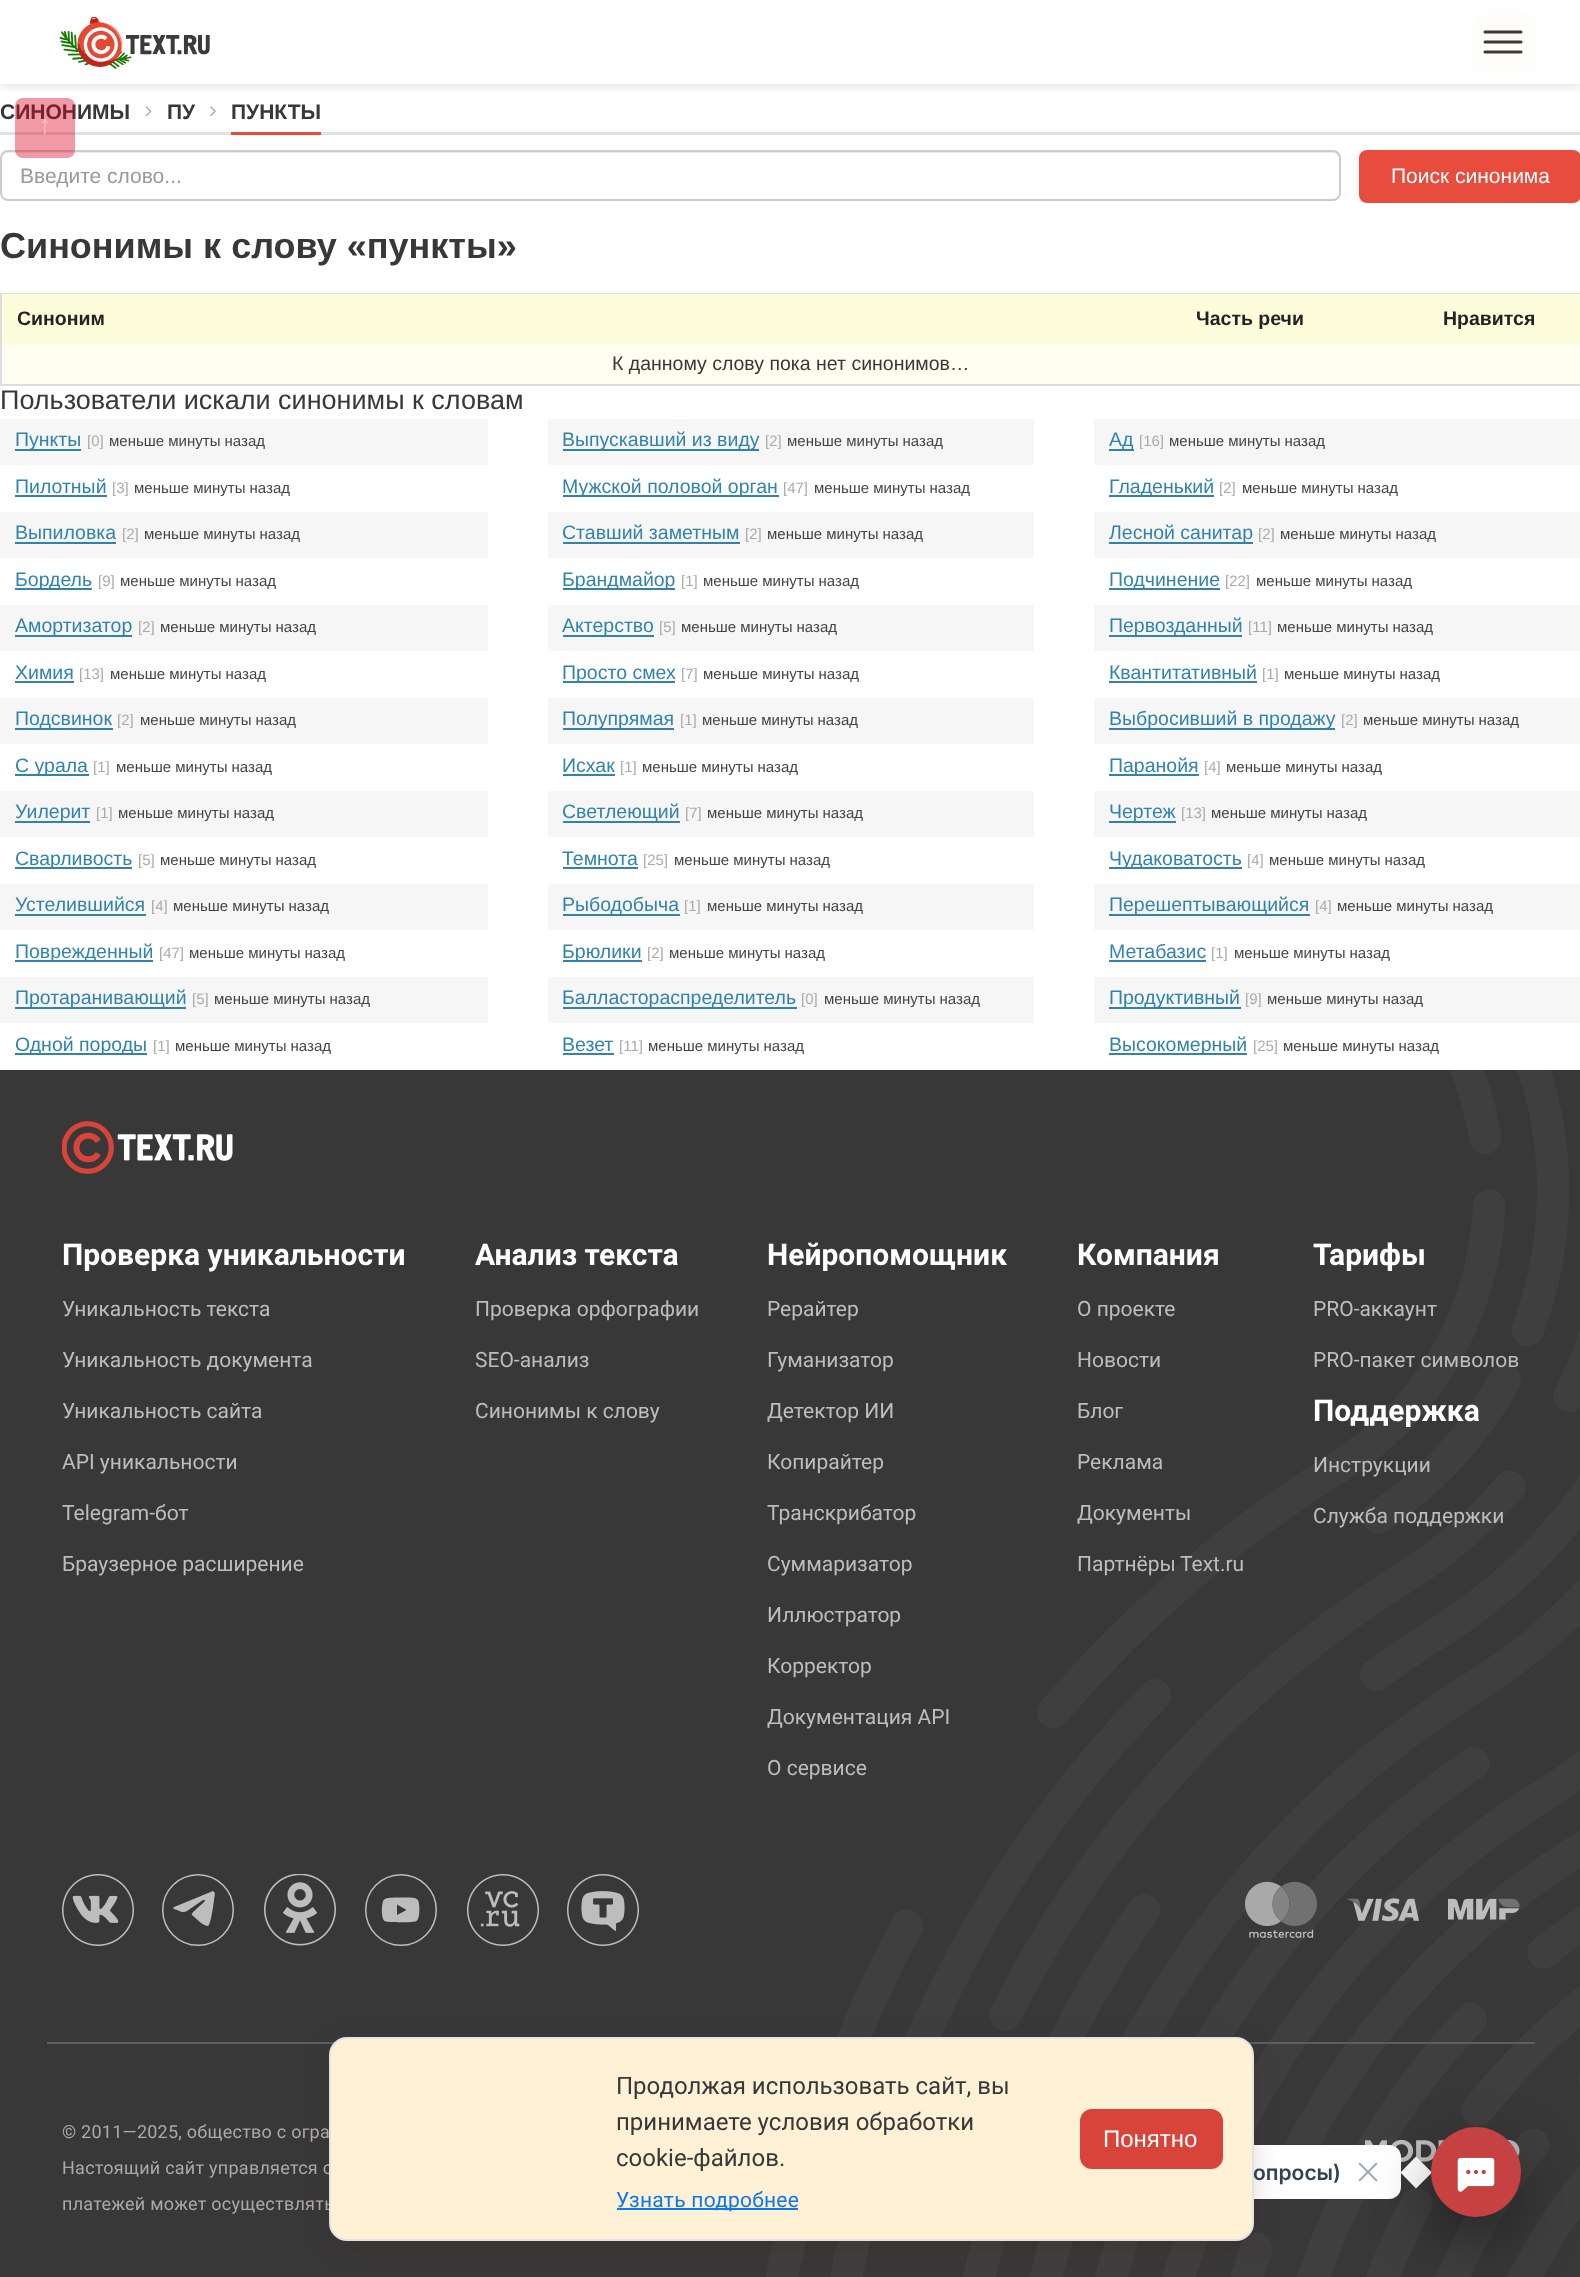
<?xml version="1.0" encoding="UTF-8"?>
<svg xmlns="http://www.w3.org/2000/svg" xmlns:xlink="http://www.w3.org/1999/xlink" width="1580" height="2277">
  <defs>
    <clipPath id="clip1"><rect x="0" y="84" width="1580" height="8" /></clipPath>
  </defs>
  <rect width="100%" height="100%" fill="#ffffff" />
  <g clip-path="url(#clip1)">
    <rect y="2" width="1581" height="84" fill="#162c46" fill-opacity="0.14" filter="blur(6px)" />
  </g>
  <image x="59" y="17" width="151" height="52" xlink:href="image1.png" />
  <rect x="1473" y="12" width="60" height="60" rx="12" fill="#fffdfa" />
  <path d="M 1485 32 h 36 m -36 10 h 36 m -36 10 h 36" fill="none" stroke="#3a3a3a" stroke-width="3" stroke-linecap="round" />
  <image x="145" y="106" width="7" height="11" xlink:href="image2.png" />
  <image x="210" y="106" width="6" height="11" xlink:href="image3.png" />
  <rect y="132" width="1580" height="3" fill="#e1e1e1" />
  <rect x="231" y="132" width="90" height="3" fill="#e84c3d" />
  <path d="M 8 153 h 1326 c 3 0 6 3 6 6 c 0 -4 -2 -7 -6 -7 h -1326 c -4 0 -6 3 -6 7 c 0 -3 2 -6 6 -6 z" fill="#ececec" />
  <rect x="1" y="151" width="1339" height="49" rx="7" fill="none" stroke="#cccccc" stroke-width="2" />
  <rect x="1360" y="151" width="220" height="51" rx="7" fill="#e84c3d" stroke="#e84c3d" stroke-width="2" />
  <rect x="1" y="294" width="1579" height="91" fill="none" stroke="#dddddd" stroke-width="2" />
  <rect x="2" y="294" width="1578" height="51" fill="#fefddb" />
  <rect x="2" y="345" width="1578" height="39" fill="#fffef0" />
  <rect y="419" width="488" height="46" fill="#f6f6f6" />
  <rect x="15" y="449" width="66" height="2" fill="#3083ae" />
  <rect x="15" y="495" width="92" height="2" fill="#3083ae" />
  <rect y="512" width="488" height="46" fill="#f6f6f6" />
  <rect x="15" y="542" width="101" height="2" fill="#3083ae" />
  <rect x="15" y="588" width="77" height="2" fill="#3083ae" />
  <rect y="605" width="488" height="46" fill="#f6f6f6" />
  <rect x="15" y="635" width="117" height="2" fill="#3083ae" />
  <rect x="15" y="681" width="59" height="2" fill="#3083ae" />
  <rect y="698" width="488" height="46" fill="#f6f6f6" />
  <rect x="15" y="728" width="98" height="2" fill="#3083ae" />
  <rect x="15" y="774" width="74" height="2" fill="#3083ae" />
  <rect y="791" width="488" height="46" fill="#f6f6f6" />
  <rect x="15" y="821" width="75" height="2" fill="#3083ae" />
  <rect x="15" y="867" width="117" height="2" fill="#3083ae" />
  <rect y="884" width="488" height="46" fill="#f6f6f6" />
  <rect x="15" y="914" width="131" height="2" fill="#3083ae" />
  <rect x="15" y="960" width="138" height="2" fill="#3083ae" />
  <rect y="977" width="488" height="46" fill="#f6f6f6" />
  <rect x="15" y="1007" width="171" height="2" fill="#3083ae" />
  <rect x="15" y="1053" width="132" height="2" fill="#3083ae" />
  <rect x="548" y="419" width="486" height="46" fill="#f6f6f6" />
  <rect x="563" y="449" width="196" height="2" fill="#3083ae" />
  <rect x="563" y="495" width="216" height="2" fill="#3083ae" />
  <rect x="548" y="512" width="486" height="46" fill="#f6f6f6" />
  <rect x="563" y="542" width="177" height="2" fill="#3083ae" />
  <rect x="563" y="588" width="112" height="2" fill="#3083ae" />
  <rect x="548" y="605" width="486" height="46" fill="#f6f6f6" />
  <rect x="563" y="635" width="91" height="2" fill="#3083ae" />
  <rect x="563" y="681" width="112" height="2" fill="#3083ae" />
  <rect x="548" y="698" width="486" height="46" fill="#f6f6f6" />
  <rect x="563" y="728" width="111" height="2" fill="#3083ae" />
  <rect x="563" y="774" width="52" height="2" fill="#3083ae" />
  <rect x="548" y="791" width="486" height="46" fill="#f6f6f6" />
  <rect x="563" y="821" width="117" height="2" fill="#3083ae" />
  <rect x="563" y="867" width="75" height="2" fill="#3083ae" />
  <rect x="548" y="884" width="486" height="46" fill="#f6f6f6" />
  <rect x="563" y="914" width="117" height="2" fill="#3083ae" />
  <rect x="563" y="960" width="79" height="2" fill="#3083ae" />
  <rect x="548" y="977" width="486" height="46" fill="#f6f6f6" />
  <rect x="563" y="1007" width="234" height="2" fill="#3083ae" />
  <rect x="563" y="1053" width="51" height="2" fill="#3083ae" />
  <rect x="1094" y="419" width="486" height="46" fill="#f6f6f6" />
  <rect x="1109" y="449" width="25" height="2" fill="#3083ae" />
  <rect x="1109" y="495" width="105" height="2" fill="#3083ae" />
  <rect x="1094" y="512" width="486" height="46" fill="#f6f6f6" />
  <rect x="1109" y="542" width="144" height="2" fill="#3083ae" />
  <rect x="1109" y="588" width="111" height="2" fill="#3083ae" />
  <rect x="1094" y="605" width="486" height="46" fill="#f6f6f6" />
  <rect x="1109" y="635" width="133" height="2" fill="#3083ae" />
  <rect x="1109" y="681" width="148" height="2" fill="#3083ae" />
  <rect x="1094" y="698" width="486" height="46" fill="#f6f6f6" />
  <rect x="1109" y="728" width="226" height="2" fill="#3083ae" />
  <rect x="1109" y="774" width="90" height="2" fill="#3083ae" />
  <rect x="1094" y="791" width="486" height="46" fill="#f6f6f6" />
  <rect x="1109" y="821" width="67" height="2" fill="#3083ae" />
  <rect x="1109" y="867" width="133" height="2" fill="#3083ae" />
  <rect x="1094" y="884" width="486" height="46" fill="#f6f6f6" />
  <rect x="1109" y="914" width="201" height="2" fill="#3083ae" />
  <rect x="1109" y="960" width="97" height="2" fill="#3083ae" />
  <rect x="1094" y="977" width="486" height="46" fill="#f6f6f6" />
  <rect x="1109" y="1007" width="132" height="2" fill="#3083ae" />
  <rect x="1109" y="1053" width="138" height="2" fill="#3083ae" />
  <rect y="1070" width="1580" height="1207" fill="#383838" />
  <image x="766" y="1070" width="814" height="1207" xlink:href="image4.png" />
  <image x="62" y="1121" width="171" height="53" xlink:href="image5.png" />
  <rect x="47" y="2042" width="1488" height="2" fill="#5e5e5e" />
  <image x="62" y="1874" width="72" height="72" xlink:href="image6.png" />
  <path d="M 213 1891 l -34 14 c -5 2 -9 3 -2 5 c 4 2 7 3 10 1 l 16 -11 h 2 c 1 2 -15 13 -13 15 l 9 8 c 2 1 5 3 7 3 c 3 -1 6 -25 6 -26 c 0 -2 2 -7 0 -8 z" fill="#bdbdbd" />
  <circle cx="198" cy="1910" r="35.25" fill="none" stroke="#bdbdbd" stroke-width="1.5" />
  <image x="264" y="1874" width="72" height="72" xlink:href="image7.png" />
  <path d="M 400 1922.5 c -3 -0.5 -12.5 0 -15.5 -1.5 c -3.5 -2.5 -3 -16 -1.5 -19.5 c 0 -1 1 -2 2 -2.5 c 2.5 -2 16 -1.5 19.5 -1.5 c 3 0 10.5 -0.5 13 2 c 2.5 2.5 3 19 -1 21.5 c -2.5 1.5 -13.5 1 -16.5 1.5 z m -3 -7.5 l 9.5 -5 l -9.5 -5.5 z" fill="#bdbdbd" />
  <circle cx="401" cy="1910" r="35.25" fill="none" stroke="#bdbdbd" stroke-width="1.5" />
  <image x="467" y="1874" width="72" height="72" xlink:href="image8.png" />
  <image x="567" y="1874" width="72" height="72" xlink:href="image9.png" />
  <image x="1245" y="1881" width="72" height="57" xlink:href="image10.png" />
  <image x="1347" y="1898" width="72" height="24" xlink:href="image11.png" />
  <image x="1448" y="1898" width="72" height="22" xlink:href="image12.png" />
  <image x="1365" y="2139" width="155" height="23" xlink:href="image13.png" />
  <rect x="960" y="2145" width="441" height="54" rx="12" fill="#ffffff" />
  <rect x="329" y="2043" width="925" height="204" rx="18" fill="#4c1414" fill-opacity="0.16" filter="blur(12px)" />
  <image x="1358" y="2162" width="20" height="20" xlink:href="image14.png" />
  <path d="M 1416 2156.5 l 16 16 l -16 16 l -15.5 -16 z" fill="#ffffff" />
  <rect x="1431" y="2151" width="90" height="90" rx="45" fill="#000000" fill-opacity="0.4" filter="blur(30px)" />
  <circle cx="1476" cy="2172" r="45" fill="#c64141" />
  <image x="1457" y="2157" width="38" height="35" xlink:href="image15.png" />
  <text x="0" y="119" style="font-family: Liberation Sans; font-size: 21px; font-weight: bold; fill: #383838">СИНОНИМЫ</text>
  <text x="167" y="119" style="font-family: Liberation Sans; font-size: 21px; font-weight: bold; fill: #383838">ПУ</text>
  <text x="231" y="119" style="font-family: Liberation Sans; font-size: 21px; font-weight: bold; fill: #383838">ПУНКТЫ</text>
  <rect x="15" y="98" width="60" height="60" rx="8" fill="#df0024" fill-opacity="0.4" />
  <text x="38" y="134" style="font-family: Liberation Sans; font-size: 27px; font-weight: bold; fill: #f6c0c9">↑</text>
  <text x="20" y="183" style="font-family: Liberation Sans; font-size: 21px; fill: #999999">Введите слово...</text>
  <text x="1391" y="183" style="font-family: Liberation Sans; font-size: 21px; fill: #ffffff">Поиск синонима</text>
  <text x="0" y="258" style="font-family: Liberation Sans; font-size: 36px; font-weight: bold; fill: #383838">Синонимы к слову «пункты»</text>
  <text x="17" y="325" style="font-family: Liberation Sans; font-size: 19.5px; font-weight: bold; fill: #222222">Синоним</text>
  <text x="1196" y="325" style="font-family: Liberation Sans; font-size: 19.5px; font-weight: bold; fill: #222222">Часть речи</text>
  <text x="1443" y="325" style="font-family: Liberation Sans; font-size: 19.5px; font-weight: bold; fill: #222222">Нравится</text>
  <text x="612" y="370" style="font-family: Liberation Sans; font-size: 19.5px; fill: #383838">К данному слову пока нет синонимов…</text>
  <text x="0" y="409" style="font-family: Liberation Sans; font-size: 27px; fill: #383838">Пользователи искали синонимы к словам</text>
  <text x="15" y="446" style="font-family: Liberation Sans; font-size: 19.5px; fill: #3083ae">Пункты</text>
  <text x="87" y="446" style="font-family: Liberation Sans; font-size: 15px; fill: #aaaaaa">[0]</text>
  <text x="109" y="446" style="font-family: Liberation Sans; font-size: 15px; fill: #444444">меньше минуты назад</text>
  <text x="15" y="493" style="font-family: Liberation Sans; font-size: 19.5px; fill: #3083ae">Пилотный</text>
  <text x="112" y="493" style="font-family: Liberation Sans; font-size: 15px; fill: #aaaaaa">[3]</text>
  <text x="134" y="493" style="font-family: Liberation Sans; font-size: 15px; fill: #444444">меньше минуты назад</text>
  <text x="15" y="539" style="font-family: Liberation Sans; font-size: 19.5px; fill: #3083ae">Выпиловка</text>
  <text x="122" y="539" style="font-family: Liberation Sans; font-size: 15px; fill: #aaaaaa">[2]</text>
  <text x="144" y="539" style="font-family: Liberation Sans; font-size: 15px; fill: #444444">меньше минуты назад</text>
  <text x="15" y="586" style="font-family: Liberation Sans; font-size: 19.5px; fill: #3083ae">Бордель</text>
  <text x="98" y="586" style="font-family: Liberation Sans; font-size: 15px; fill: #aaaaaa">[9]</text>
  <text x="120" y="586" style="font-family: Liberation Sans; font-size: 15px; fill: #444444">меньше минуты назад</text>
  <text x="15" y="632" style="font-family: Liberation Sans; font-size: 19.5px; fill: #3083ae">Амортизатор</text>
  <text x="138" y="632" style="font-family: Liberation Sans; font-size: 15px; fill: #aaaaaa">[2]</text>
  <text x="160" y="632" style="font-family: Liberation Sans; font-size: 15px; fill: #444444">меньше минуты назад</text>
  <text x="15" y="679" style="font-family: Liberation Sans; font-size: 19.5px; fill: #3083ae">Химия</text>
  <text x="79" y="679" style="font-family: Liberation Sans; font-size: 15px; fill: #aaaaaa">[13]</text>
  <text x="110" y="679" style="font-family: Liberation Sans; font-size: 15px; fill: #444444">меньше минуты назад</text>
  <text x="15" y="725" style="font-family: Liberation Sans; font-size: 19.5px; fill: #3083ae">Подсвинок</text>
  <text x="117" y="725" style="font-family: Liberation Sans; font-size: 15px; fill: #aaaaaa">[2]</text>
  <text x="140" y="725" style="font-family: Liberation Sans; font-size: 15px; fill: #444444">меньше минуты назад</text>
  <text x="15" y="772" style="font-family: Liberation Sans; font-size: 19.5px; fill: #3083ae">С урала</text>
  <text x="93" y="772" style="font-family: Liberation Sans; font-size: 15px; fill: #aaaaaa">[1]</text>
  <text x="116" y="772" style="font-family: Liberation Sans; font-size: 15px; fill: #444444">меньше минуты назад</text>
  <text x="15" y="818" style="font-family: Liberation Sans; font-size: 19.5px; fill: #3083ae">Уилерит</text>
  <text x="96" y="818" style="font-family: Liberation Sans; font-size: 15px; fill: #aaaaaa">[1]</text>
  <text x="118" y="818" style="font-family: Liberation Sans; font-size: 15px; fill: #444444">меньше минуты назад</text>
  <text x="15" y="865" style="font-family: Liberation Sans; font-size: 19.5px; fill: #3083ae">Сварливость</text>
  <text x="138" y="865" style="font-family: Liberation Sans; font-size: 15px; fill: #aaaaaa">[5]</text>
  <text x="160" y="865" style="font-family: Liberation Sans; font-size: 15px; fill: #444444">меньше минуты назад</text>
  <text x="15" y="911" style="font-family: Liberation Sans; font-size: 19.5px; fill: #3083ae">Устелившийся</text>
  <text x="151" y="911" style="font-family: Liberation Sans; font-size: 15px; fill: #aaaaaa">[4]</text>
  <text x="173" y="911" style="font-family: Liberation Sans; font-size: 15px; fill: #444444">меньше минуты назад</text>
  <text x="15" y="958" style="font-family: Liberation Sans; font-size: 19.5px; fill: #3083ae">Поврежденный</text>
  <text x="159" y="958" style="font-family: Liberation Sans; font-size: 15px; fill: #aaaaaa">[47]</text>
  <text x="189" y="958" style="font-family: Liberation Sans; font-size: 15px; fill: #444444">меньше минуты назад</text>
  <text x="15" y="1004" style="font-family: Liberation Sans; font-size: 19.5px; fill: #3083ae">Протаранивающий</text>
  <text x="192" y="1004" style="font-family: Liberation Sans; font-size: 15px; fill: #aaaaaa">[5]</text>
  <text x="214" y="1004" style="font-family: Liberation Sans; font-size: 15px; fill: #444444">меньше минуты назад</text>
  <text x="15" y="1051" style="font-family: Liberation Sans; font-size: 19.5px; fill: #3083ae">Одной породы</text>
  <text x="153" y="1051" style="font-family: Liberation Sans; font-size: 15px; fill: #aaaaaa">[1]</text>
  <text x="175" y="1051" style="font-family: Liberation Sans; font-size: 15px; fill: #444444">меньше минуты назад</text>
  <text x="562" y="446" style="font-family: Liberation Sans; font-size: 19.5px; fill: #3083ae">Выпускавший из виду</text>
  <text x="765" y="446" style="font-family: Liberation Sans; font-size: 15px; fill: #aaaaaa">[2]</text>
  <text x="787" y="446" style="font-family: Liberation Sans; font-size: 15px; fill: #444444">меньше минуты назад</text>
  <text x="562" y="493" style="font-family: Liberation Sans; font-size: 19.5px; fill: #3083ae">Мужской половой орган</text>
  <text x="783" y="493" style="font-family: Liberation Sans; font-size: 15px; fill: #aaaaaa">[47]</text>
  <text x="814" y="493" style="font-family: Liberation Sans; font-size: 15px; fill: #444444">меньше минуты назад</text>
  <text x="562" y="539" style="font-family: Liberation Sans; font-size: 19.5px; fill: #3083ae">Ставший заметным</text>
  <text x="745" y="539" style="font-family: Liberation Sans; font-size: 15px; fill: #aaaaaa">[2]</text>
  <text x="767" y="539" style="font-family: Liberation Sans; font-size: 15px; fill: #444444">меньше минуты назад</text>
  <text x="562" y="586" style="font-family: Liberation Sans; font-size: 19.5px; fill: #3083ae">Брандмайор</text>
  <text x="681" y="586" style="font-family: Liberation Sans; font-size: 15px; fill: #aaaaaa">[1]</text>
  <text x="703" y="586" style="font-family: Liberation Sans; font-size: 15px; fill: #444444">меньше минуты назад</text>
  <text x="562" y="632" style="font-family: Liberation Sans; font-size: 19.5px; fill: #3083ae">Актерство</text>
  <text x="659" y="632" style="font-family: Liberation Sans; font-size: 15px; fill: #aaaaaa">[5]</text>
  <text x="681" y="632" style="font-family: Liberation Sans; font-size: 15px; fill: #444444">меньше минуты назад</text>
  <text x="562" y="679" style="font-family: Liberation Sans; font-size: 19.5px; fill: #3083ae">Просто смех</text>
  <text x="681" y="679" style="font-family: Liberation Sans; font-size: 15px; fill: #aaaaaa">[7]</text>
  <text x="703" y="679" style="font-family: Liberation Sans; font-size: 15px; fill: #444444">меньше минуты назад</text>
  <text x="562" y="725" style="font-family: Liberation Sans; font-size: 19.5px; fill: #3083ae">Полупрямая</text>
  <text x="680" y="725" style="font-family: Liberation Sans; font-size: 15px; fill: #aaaaaa">[1]</text>
  <text x="702" y="725" style="font-family: Liberation Sans; font-size: 15px; fill: #444444">меньше минуты назад</text>
  <text x="562" y="772" style="font-family: Liberation Sans; font-size: 19.5px; fill: #3083ae">Исхак</text>
  <text x="620" y="772" style="font-family: Liberation Sans; font-size: 15px; fill: #aaaaaa">[1]</text>
  <text x="642" y="772" style="font-family: Liberation Sans; font-size: 15px; fill: #444444">меньше минуты назад</text>
  <text x="562" y="818" style="font-family: Liberation Sans; font-size: 19.5px; fill: #3083ae">Светлеющий</text>
  <text x="685" y="818" style="font-family: Liberation Sans; font-size: 15px; fill: #aaaaaa">[7]</text>
  <text x="707" y="818" style="font-family: Liberation Sans; font-size: 15px; fill: #444444">меньше минуты назад</text>
  <text x="562" y="865" style="font-family: Liberation Sans; font-size: 19.5px; fill: #3083ae">Темнота</text>
  <text x="643" y="865" style="font-family: Liberation Sans; font-size: 15px; fill: #aaaaaa">[25]</text>
  <text x="674" y="865" style="font-family: Liberation Sans; font-size: 15px; fill: #444444">меньше минуты назад</text>
  <text x="562" y="911" style="font-family: Liberation Sans; font-size: 19.5px; fill: #3083ae">Рыбодобыча</text>
  <text x="684" y="911" style="font-family: Liberation Sans; font-size: 15px; fill: #aaaaaa">[1]</text>
  <text x="707" y="911" style="font-family: Liberation Sans; font-size: 15px; fill: #444444">меньше минуты назад</text>
  <text x="562" y="958" style="font-family: Liberation Sans; font-size: 19.5px; fill: #3083ae">Брюлики</text>
  <text x="647" y="958" style="font-family: Liberation Sans; font-size: 15px; fill: #aaaaaa">[2]</text>
  <text x="669" y="958" style="font-family: Liberation Sans; font-size: 15px; fill: #444444">меньше минуты назад</text>
  <text x="562" y="1004" style="font-family: Liberation Sans; font-size: 19.5px; fill: #3083ae">Балластораспределитель</text>
  <text x="801" y="1004" style="font-family: Liberation Sans; font-size: 15px; fill: #aaaaaa">[0]</text>
  <text x="824" y="1004" style="font-family: Liberation Sans; font-size: 15px; fill: #444444">меньше минуты назад</text>
  <text x="562" y="1051" style="font-family: Liberation Sans; font-size: 19.5px; fill: #3083ae">Везет</text>
  <text x="619" y="1051" style="font-family: Liberation Sans; font-size: 15px; fill: #aaaaaa">[11]</text>
  <text x="648" y="1051" style="font-family: Liberation Sans; font-size: 15px; fill: #444444">меньше минуты назад</text>
  <text x="1109" y="446" style="font-family: Liberation Sans; font-size: 19.5px; fill: #3083ae">Ад</text>
  <text x="1139" y="446" style="font-family: Liberation Sans; font-size: 15px; fill: #aaaaaa">[16]</text>
  <text x="1169" y="446" style="font-family: Liberation Sans; font-size: 15px; fill: #444444">меньше минуты назад</text>
  <text x="1109" y="493" style="font-family: Liberation Sans; font-size: 19.5px; fill: #3083ae">Гладенький</text>
  <text x="1219" y="493" style="font-family: Liberation Sans; font-size: 15px; fill: #aaaaaa">[2]</text>
  <text x="1242" y="493" style="font-family: Liberation Sans; font-size: 15px; fill: #444444">меньше минуты назад</text>
  <text x="1109" y="539" style="font-family: Liberation Sans; font-size: 19.5px; fill: #3083ae">Лесной санитар</text>
  <text x="1258" y="539" style="font-family: Liberation Sans; font-size: 15px; fill: #aaaaaa">[2]</text>
  <text x="1280" y="539" style="font-family: Liberation Sans; font-size: 15px; fill: #444444">меньше минуты назад</text>
  <text x="1109" y="586" style="font-family: Liberation Sans; font-size: 19.5px; fill: #3083ae">Подчинение</text>
  <text x="1225" y="586" style="font-family: Liberation Sans; font-size: 15px; fill: #aaaaaa">[22]</text>
  <text x="1256" y="586" style="font-family: Liberation Sans; font-size: 15px; fill: #444444">меньше минуты назад</text>
  <text x="1109" y="632" style="font-family: Liberation Sans; font-size: 19.5px; fill: #3083ae">Первозданный</text>
  <text x="1248" y="632" style="font-family: Liberation Sans; font-size: 15px; fill: #aaaaaa">[11]</text>
  <text x="1277" y="632" style="font-family: Liberation Sans; font-size: 15px; fill: #444444">меньше минуты назад</text>
  <text x="1109" y="679" style="font-family: Liberation Sans; font-size: 19.5px; fill: #3083ae">Квантитативный</text>
  <text x="1262" y="679" style="font-family: Liberation Sans; font-size: 15px; fill: #aaaaaa">[1]</text>
  <text x="1284" y="679" style="font-family: Liberation Sans; font-size: 15px; fill: #444444">меньше минуты назад</text>
  <text x="1109" y="725" style="font-family: Liberation Sans; font-size: 19.5px; fill: #3083ae">Выбросивший в продажу</text>
  <text x="1341" y="725" style="font-family: Liberation Sans; font-size: 15px; fill: #aaaaaa">[2]</text>
  <text x="1363" y="725" style="font-family: Liberation Sans; font-size: 15px; fill: #444444">меньше минуты назад</text>
  <text x="1109" y="772" style="font-family: Liberation Sans; font-size: 19.5px; fill: #3083ae">Паранойя</text>
  <text x="1204" y="772" style="font-family: Liberation Sans; font-size: 15px; fill: #aaaaaa">[4]</text>
  <text x="1226" y="772" style="font-family: Liberation Sans; font-size: 15px; fill: #444444">меньше минуты назад</text>
  <text x="1109" y="818" style="font-family: Liberation Sans; font-size: 19.5px; fill: #3083ae">Чертеж</text>
  <text x="1181" y="818" style="font-family: Liberation Sans; font-size: 15px; fill: #aaaaaa">[13]</text>
  <text x="1211" y="818" style="font-family: Liberation Sans; font-size: 15px; fill: #444444">меньше минуты назад</text>
  <text x="1109" y="865" style="font-family: Liberation Sans; font-size: 19.5px; fill: #3083ae">Чудаковатость</text>
  <text x="1247" y="865" style="font-family: Liberation Sans; font-size: 15px; fill: #aaaaaa">[4]</text>
  <text x="1269" y="865" style="font-family: Liberation Sans; font-size: 15px; fill: #444444">меньше минуты назад</text>
  <text x="1109" y="911" style="font-family: Liberation Sans; font-size: 19.5px; fill: #3083ae">Перешептывающийся</text>
  <text x="1315" y="911" style="font-family: Liberation Sans; font-size: 15px; fill: #aaaaaa">[4]</text>
  <text x="1337" y="911" style="font-family: Liberation Sans; font-size: 15px; fill: #444444">меньше минуты назад</text>
  <text x="1109" y="958" style="font-family: Liberation Sans; font-size: 19.5px; fill: #3083ae">Метабазис</text>
  <text x="1211" y="958" style="font-family: Liberation Sans; font-size: 15px; fill: #aaaaaa">[1]</text>
  <text x="1234" y="958" style="font-family: Liberation Sans; font-size: 15px; fill: #444444">меньше минуты назад</text>
  <text x="1109" y="1004" style="font-family: Liberation Sans; font-size: 19.5px; fill: #3083ae">Продуктивный</text>
  <text x="1245" y="1004" style="font-family: Liberation Sans; font-size: 15px; fill: #aaaaaa">[9]</text>
  <text x="1267" y="1004" style="font-family: Liberation Sans; font-size: 15px; fill: #444444">меньше минуты назад</text>
  <text x="1109" y="1051" style="font-family: Liberation Sans; font-size: 19.5px; fill: #3083ae">Высокомерный</text>
  <text x="1253" y="1051" style="font-family: Liberation Sans; font-size: 15px; fill: #aaaaaa">[25]</text>
  <text x="1283" y="1051" style="font-family: Liberation Sans; font-size: 15px; fill: #444444">меньше минуты назад</text>
  <text x="62" y="1265" style="font-family: Roboto; font-size: 30px; font-weight: bold; fill: #ffffff">Проверка уникальности</text>
  <text x="62" y="1316" style="font-family: Roboto; font-size: 21px; fill: #bdbdbd">Уникальность текста</text>
  <text x="62" y="1367" style="font-family: Roboto; font-size: 21px; fill: #bdbdbd">Уникальность документа</text>
  <text x="62" y="1418" style="font-family: Roboto; font-size: 21px; fill: #bdbdbd">Уникальность сайта</text>
  <text x="62" y="1469" style="font-family: Roboto; font-size: 21px; fill: #bdbdbd">API уникальности</text>
  <text x="62" y="1520" style="font-family: Roboto; font-size: 21px; fill: #bdbdbd">Telegram-бот</text>
  <text x="62" y="1571" style="font-family: Roboto; font-size: 21px; fill: #bdbdbd">Браузерное расширение</text>
  <text x="475" y="1265" style="font-family: Roboto; font-size: 30px; font-weight: bold; fill: #ffffff">Анализ текста</text>
  <text x="475" y="1316" style="font-family: Roboto; font-size: 21px; fill: #bdbdbd">Проверка орфографии</text>
  <text x="475" y="1367" style="font-family: Roboto; font-size: 21px; fill: #bdbdbd">SEO-анализ</text>
  <text x="475" y="1418" style="font-family: Roboto; font-size: 21px; fill: #bdbdbd">Синонимы к слову</text>
  <text x="767" y="1265" style="font-family: Roboto; font-size: 30px; font-weight: bold; fill: #ffffff">Нейропомощник</text>
  <text x="767" y="1316" style="font-family: Roboto; font-size: 21px; fill: #bdbdbd">Рерайтер</text>
  <text x="767" y="1367" style="font-family: Roboto; font-size: 21px; fill: #bdbdbd">Гуманизатор</text>
  <text x="767" y="1418" style="font-family: Roboto; font-size: 21px; fill: #bdbdbd">Детектор ИИ</text>
  <text x="767" y="1469" style="font-family: Roboto; font-size: 21px; fill: #bdbdbd">Копирайтер</text>
  <text x="767" y="1520" style="font-family: Roboto; font-size: 21px; fill: #bdbdbd">Транскрибатор</text>
  <text x="767" y="1571" style="font-family: Roboto; font-size: 21px; fill: #bdbdbd">Суммаризатор</text>
  <text x="767" y="1622" style="font-family: Roboto; font-size: 21px; fill: #bdbdbd">Иллюстратор</text>
  <text x="767" y="1673" style="font-family: Roboto; font-size: 21px; fill: #bdbdbd">Корректор</text>
  <text x="767" y="1724" style="font-family: Roboto; font-size: 21px; fill: #bdbdbd">Документация API</text>
  <text x="767" y="1775" style="font-family: Roboto; font-size: 21px; fill: #bdbdbd">О сервисе</text>
  <text x="1077" y="1265" style="font-family: Roboto; font-size: 30px; font-weight: bold; fill: #ffffff">Компания</text>
  <text x="1077" y="1316" style="font-family: Roboto; font-size: 21px; fill: #bdbdbd">О проекте</text>
  <text x="1077" y="1367" style="font-family: Roboto; font-size: 21px; fill: #bdbdbd">Новости</text>
  <text x="1077" y="1418" style="font-family: Roboto; font-size: 21px; fill: #bdbdbd">Блог</text>
  <text x="1077" y="1469" style="font-family: Roboto; font-size: 21px; fill: #bdbdbd">Реклама</text>
  <text x="1077" y="1520" style="font-family: Roboto; font-size: 21px; fill: #bdbdbd">Документы</text>
  <text x="1077" y="1571" word-spacing="-1" style="font-family: Roboto; font-size: 21px; fill: #bdbdbd">Партнёры Text.ru</text>
  <text x="1313" y="1265" style="font-family: Roboto; font-size: 30px; font-weight: bold; fill: #ffffff">Тарифы</text>
  <text x="1313" y="1316" style="font-family: Roboto; font-size: 21px; fill: #bdbdbd">PRO-аккаунт</text>
  <text x="1313" y="1367" style="font-family: Roboto; font-size: 21px; fill: #bdbdbd">PRO-пакет символов</text>
  <text x="1313" y="1421" style="font-family: Roboto; font-size: 30px; font-weight: bold; fill: #ffffff">Поддержка</text>
  <text x="1313" y="1472" style="font-family: Roboto; font-size: 21px; fill: #bdbdbd">Инструкции</text>
  <text x="1313" y="1523" style="font-family: Roboto; font-size: 21px; fill: #bdbdbd">Служба поддержки</text>
  <text x="62" y="2138" style="font-family: Roboto; font-size: 18px; letter-spacing: 0.25px; fill: #aaaaaa">© 2011—2025, общество с огра</text>
  <text x="62" y="2174" style="font-family: Roboto; font-size: 18px; letter-spacing: 0.25px; fill: #aaaaaa">Настоящий сайт управляется о</text>
  <text x="62" y="2210" style="font-family: Roboto; font-size: 18px; letter-spacing: 0.25px; fill: #aaaaaa">платежей может осуществлять</text>
  <rect x="330" y="2038" width="923" height="202" rx="17" fill="#fff1d5" stroke="#e3e3e3" stroke-width="2" />
  <text x="616" y="2094" style="font-family: Roboto; font-size: 24px; fill: #383838">Продолжая использовать сайт, вы</text>
  <text x="616" y="2130" style="font-family: Roboto; font-size: 24px; fill: #383838">принимаете условия обработки</text>
  <text x="616" y="2166" style="font-family: Roboto; font-size: 24px; fill: #383838">cookie-файлов.</text>
  <rect x="617" y="2208" width="181" height="2" fill="#0c78ed" />
  <text x="616" y="2207" style="font-family: Roboto; font-size: 21px; letter-spacing: 0.25px; fill: #0c78ed">Узнать подробнее</text>
  <rect x="1081" y="2110" width="141" height="58" rx="11" fill="#d9443a" stroke="#d9443a" stroke-width="2" />
  <text x="1103" y="2147" style="font-family: Liberation Sans; font-size: 24px; fill: #ffffff">Понятно</text>
  <text x="1253" y="2180" style="font-family: Inter; font-size: 21px; font-weight: 600; fill: #344054">опросы)</text>
</svg>
